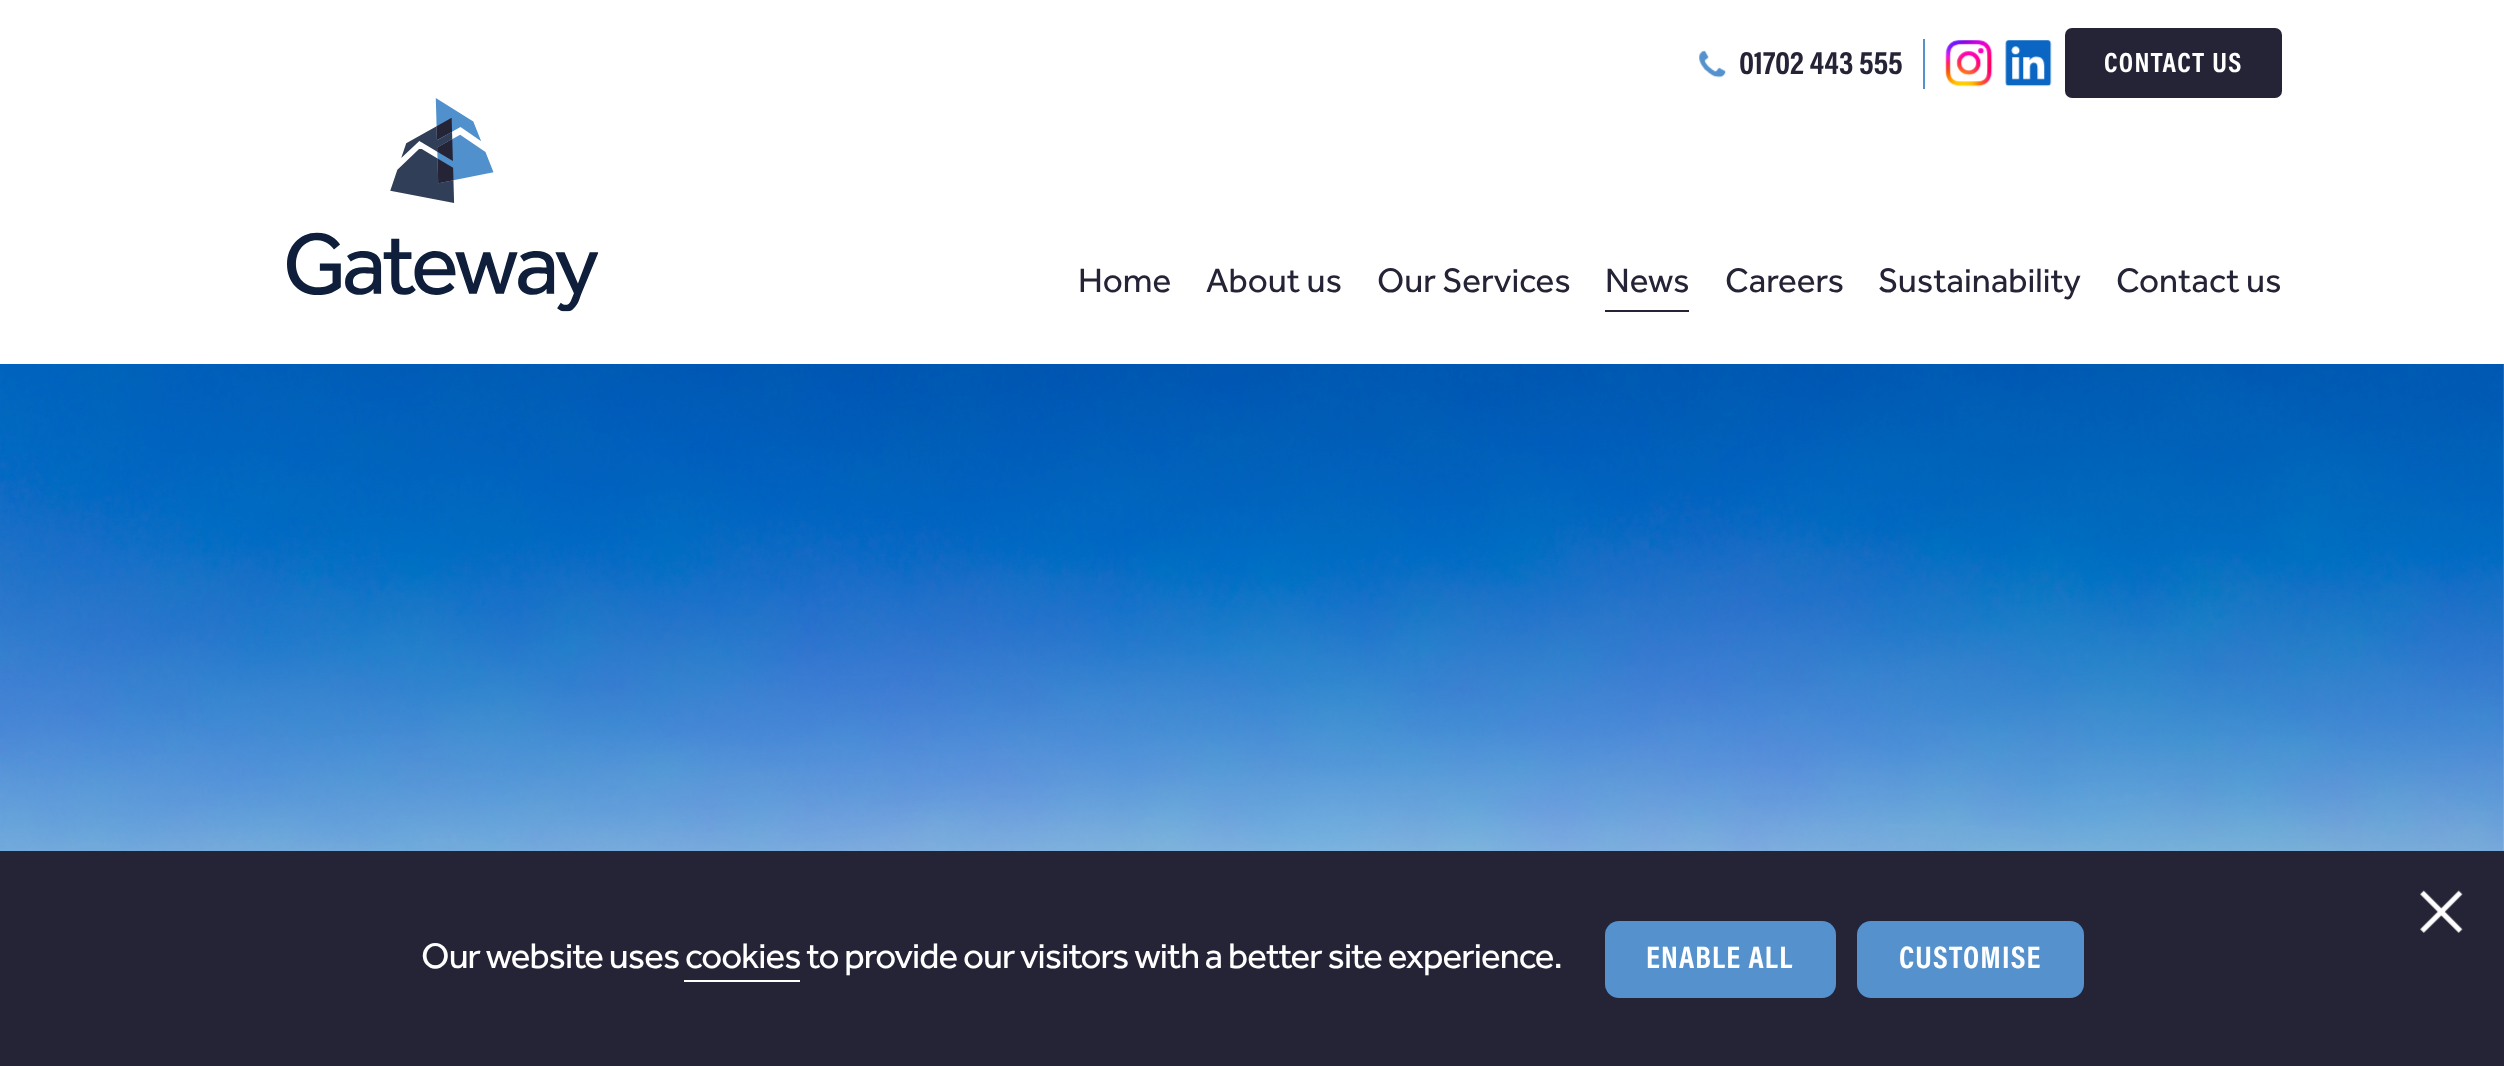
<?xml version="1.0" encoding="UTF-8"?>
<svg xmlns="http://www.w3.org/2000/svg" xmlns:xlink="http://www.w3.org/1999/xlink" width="2504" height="1066">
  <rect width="100%" height="100%" fill="#ffffff" />
  <image x="1699" y="50" width="27" height="28" xlink:href="image1.png" />
  <rect x="1923" y="39" width="2" height="50" fill="#5592cd" />
  <image x="1945" y="40" width="48" height="47" xlink:href="image2.png" />
  <image x="2005" y="40" width="47" height="47" xlink:href="image3.png" />
  <rect x="2065" y="28" width="217" height="70" rx="7" fill="#252437" />
  <image x="287" y="98" width="312" height="214" xlink:href="image4.png" />
  <rect x="1605" y="310" width="84" height="2" fill="#252437" />
  <image x="0" y="364" width="2504" height="487" xlink:href="image5.png" />
  <rect y="851" width="2504" height="215" fill="#252437" />
  <image x="2420" y="890" width="43" height="43" xlink:href="image6.png" />
  <rect x="684" y="980" width="116" height="2" fill="#ffffff" />
  <rect x="1605" y="921" width="231" height="77" rx="14" fill="#5592cd" />
  <rect x="1857" y="921" width="227" height="77" rx="14" fill="#5592cd" />
  <text x="1739" y="74" style="font-family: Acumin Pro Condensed; font-size: 33px; font-weight: bold; letter-spacing: -0.25px; fill: #252437">01702 443 555</text>
  <text x="2104" y="72" style="font-family: Acumin Pro Condensed; font-size: 28px; font-weight: bold; letter-spacing: 1.4px; fill: #ffffff">CONTACT US</text>
  <text x="1078" y="292" style="font-family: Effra; font-size: 35px; fill: #252437">Home</text>
  <text x="1206" y="292" style="font-family: Effra; font-size: 35px; fill: #252437">About us</text>
  <text x="1377" y="292" style="font-family: Effra; font-size: 35px; fill: #252437">Our Services</text>
  <text x="1605" y="292" style="font-family: Effra; font-size: 35px; fill: #252437">News</text>
  <text x="1725" y="292" style="font-family: Effra; font-size: 35px; fill: #252437">Careers</text>
  <text x="1878" y="292" style="font-family: Effra; font-size: 35px; fill: #252437">Sustainability</text>
  <text x="2116" y="292" style="font-family: Effra; font-size: 35px; fill: #252437">Contact us</text>
  <text x="421" y="968" style="font-family: Effra; font-size: 36.7px; letter-spacing: -0.92px; fill: #ffffff">Our website uses cookies to provide our visitors with a better site experience.</text>
  <text x="1646" y="968" style="font-family: Acumin Pro Condensed; font-size: 31.5px; font-weight: bold; letter-spacing: 1.25px; fill: #ffffff">ENABLE ALL</text>
  <text x="1899" y="968" style="font-family: Acumin Pro Condensed; font-size: 31.5px; font-weight: bold; letter-spacing: 1.25px; fill: #ffffff">CUSTOMISE</text>
</svg>
